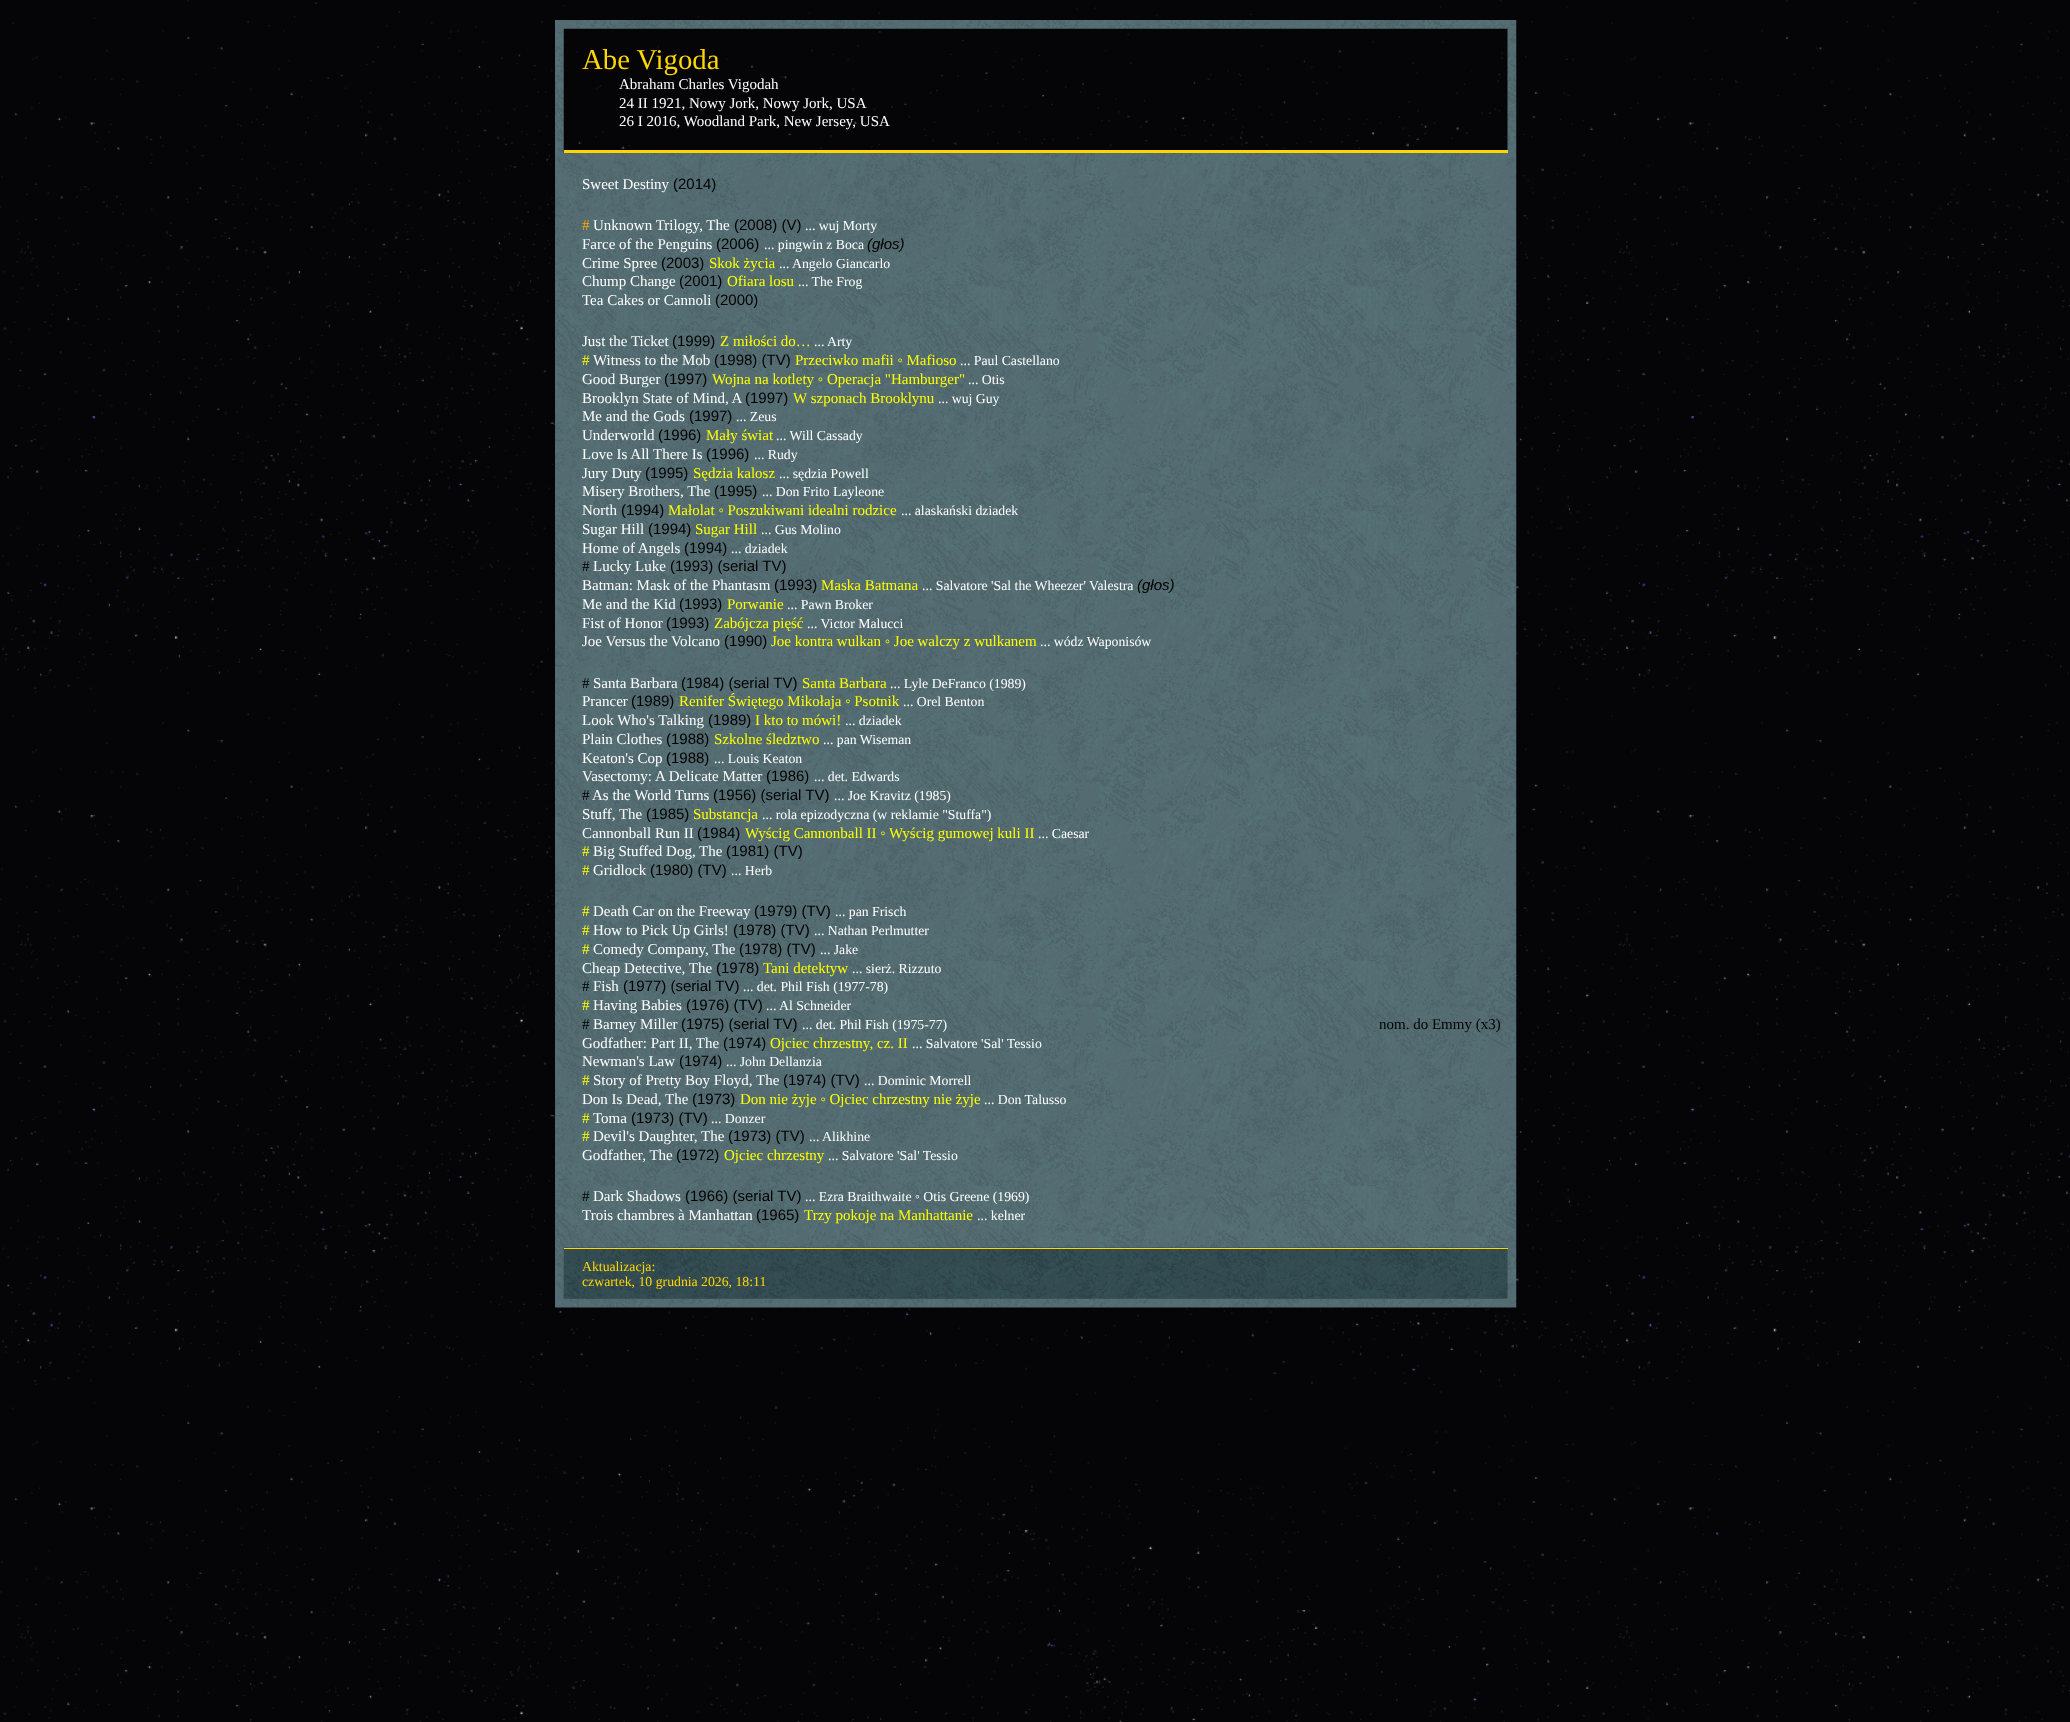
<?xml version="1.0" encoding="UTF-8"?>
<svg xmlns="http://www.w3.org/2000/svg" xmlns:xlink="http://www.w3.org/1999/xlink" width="2070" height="1722">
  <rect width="100%" height="100%" fill="#ffffff" />
  <image x="0" y="0" width="2070" height="1722" xlink:href="image1.png" />
  <image x="555" y="20" width="962" height="1288" xlink:href="image2.png" />
  <image x="563" y="28" width="945" height="125" xlink:href="image3.png" />
  <rect x="564" y="150" width="944" height="3" fill="#ffd700" />
  <image x="563" y="1247" width="945" height="52" xlink:href="image4.png" />
  <rect x="564" y="1248" width="944" height="1" fill="#ffd700" />
  <text x="582" y="69" style="font-family: Liberation Serif; font-size: 28.75px; fill: #ffd700">Abe Vigoda</text>
  <text x="619" y="89" style="font-family: Liberation Serif; font-size: 15px; fill: #ffffff">Abraham Charles Vigodah</text>
  <text x="619" y="108" style="font-family: Liberation Serif; font-size: 15px; fill: #ffffff">24 II 1921, Nowy Jork, Nowy Jork, USA</text>
  <text x="619" y="126" style="font-family: Liberation Serif; font-size: 15px; fill: #ffffff">26 I 2016, Woodland Park, New Jersey, USA</text>
  <text x="582" y="189" style="font-family: Liberation Serif; font-size: 15px; fill: #ffffff">Sweet Destiny</text>
  <text x="673" y="189" style="font-family: Liberation Sans; font-size: 15px; fill: #000000">(2014)</text>
  <text x="582" y="230" style="font-family: Liberation Serif; font-size: 15px; fill: #ffa500">#</text>
  <text x="593" y="230" style="font-family: Liberation Serif; font-size: 15px; fill: #ffffff">Unknown Trilogy, The</text>
  <text x="734" y="230" style="font-family: Liberation Sans; font-size: 15px; fill: #000000">(2008) (V)</text>
  <text x="805" y="230" style="font-family: Liberation Serif; font-size: 13.75px; fill: #ffffff">... wuj Morty</text>
  <text x="582" y="249" style="font-family: Liberation Serif; font-size: 15px; fill: #ffffff">Farce of the Penguins</text>
  <text x="716" y="249" style="font-family: Liberation Sans; font-size: 15px; fill: #000000">(2006)</text>
  <text x="764" y="249" style="font-family: Liberation Serif; font-size: 13.75px; fill: #ffffff">... pingwin z Boca</text>
  <text x="867" y="249" style="font-family: Liberation Sans; font-size: 15px; font-style: italic; fill: #000000">(głos)</text>
  <text x="582" y="268" style="font-family: Liberation Serif; font-size: 15px; fill: #ffffff">Crime Spree</text>
  <text x="661" y="268" style="font-family: Liberation Sans; font-size: 15px; fill: #000000">(2003)</text>
  <text x="709" y="268" style="font-family: Liberation Serif; font-size: 15px; fill: #ffff00">Skok życia</text>
  <text x="779" y="268" style="font-family: Liberation Serif; font-size: 13.75px; fill: #ffffff">... Angelo Giancarlo</text>
  <text x="582" y="286" style="font-family: Liberation Serif; font-size: 15px; fill: #ffffff">Chump Change</text>
  <text x="679" y="286" style="font-family: Liberation Sans; font-size: 15px; fill: #000000">(2001)</text>
  <text x="727" y="286" style="font-family: Liberation Serif; font-size: 15px; fill: #ffff00">Ofiara losu</text>
  <text x="798" y="286" style="font-family: Liberation Serif; font-size: 13.75px; fill: #ffffff">... The Frog</text>
  <text x="582" y="305" style="font-family: Liberation Serif; font-size: 15px; fill: #ffffff">Tea Cakes or Cannoli</text>
  <text x="715" y="305" style="font-family: Liberation Sans; font-size: 15px; fill: #000000">(2000)</text>
  <text x="582" y="346" style="font-family: Liberation Serif; font-size: 15px; fill: #ffffff">Just the Ticket</text>
  <text x="672" y="346" style="font-family: Liberation Sans; font-size: 15px; fill: #000000">(1999)</text>
  <text x="720" y="346" style="font-family: Liberation Serif; font-size: 15px; fill: #ffff00">Z miłości do…</text>
  <text x="814" y="346" style="font-family: Liberation Serif; font-size: 13.75px; fill: #ffffff">... Arty</text>
  <text x="582" y="365" style="font-family: Liberation Serif; font-size: 15px; fill: #ffff00">#</text>
  <text x="593" y="365" style="font-family: Liberation Serif; font-size: 15px; fill: #ffffff">Witness to the Mob</text>
  <text x="714" y="365" style="font-family: Liberation Sans; font-size: 15px; fill: #000000">(1998) (TV)</text>
  <text x="795" y="365" style="font-family: Liberation Serif; font-size: 15px; fill: #ffff00">Przeciwko mafii ◦ Mafioso</text>
  <text x="960" y="365" style="font-family: Liberation Serif; font-size: 13.75px; fill: #ffffff">... Paul Castellano</text>
  <text x="582" y="384" style="font-family: Liberation Serif; font-size: 15px; fill: #ffffff">Good Burger</text>
  <text x="664" y="384" style="font-family: Liberation Sans; font-size: 15px; fill: #000000">(1997)</text>
  <text x="712" y="384" style="font-family: Liberation Serif; font-size: 15px; fill: #ffff00">Wojna na kotlety ◦ Operacja "Hamburger"</text>
  <text x="968" y="384" style="font-family: Liberation Serif; font-size: 13.75px; fill: #ffffff">... Otis</text>
  <text x="582" y="403" style="font-family: Liberation Serif; font-size: 15px; fill: #ffffff">Brooklyn State of Mind, A</text>
  <text x="745" y="403" style="font-family: Liberation Sans; font-size: 15px; fill: #000000">(1997)</text>
  <text x="793" y="403" style="font-family: Liberation Serif; font-size: 15px; fill: #ffff00">W szponach Brooklynu</text>
  <text x="938" y="403" style="font-family: Liberation Serif; font-size: 13.75px; fill: #ffffff">... wuj Guy</text>
  <text x="582" y="421" style="font-family: Liberation Serif; font-size: 15px; fill: #ffffff">Me and the Gods</text>
  <text x="689" y="421" style="font-family: Liberation Sans; font-size: 15px; fill: #000000">(1997)</text>
  <text x="736" y="421" style="font-family: Liberation Serif; font-size: 13.75px; fill: #ffffff">... Zeus</text>
  <text x="582" y="440" style="font-family: Liberation Serif; font-size: 15px; fill: #ffffff">Underworld</text>
  <text x="658" y="440" style="font-family: Liberation Sans; font-size: 15px; fill: #000000">(1996)</text>
  <text x="706" y="440" style="font-family: Liberation Serif; font-size: 15px; fill: #ffff00">Mały świat</text>
  <text x="776" y="440" style="font-family: Liberation Serif; font-size: 13.75px; fill: #ffffff">... Will Cassady</text>
  <text x="582" y="459" style="font-family: Liberation Serif; font-size: 15px; fill: #ffffff">Love Is All There Is</text>
  <text x="706" y="459" style="font-family: Liberation Sans; font-size: 15px; fill: #000000">(1996)</text>
  <text x="754" y="459" style="font-family: Liberation Serif; font-size: 13.75px; fill: #ffffff">... Rudy</text>
  <text x="582" y="478" style="font-family: Liberation Serif; font-size: 15px; fill: #ffffff">Jury Duty</text>
  <text x="645" y="478" style="font-family: Liberation Sans; font-size: 15px; fill: #000000">(1995)</text>
  <text x="693" y="478" style="font-family: Liberation Serif; font-size: 15px; fill: #ffff00">Sędzia kalosz</text>
  <text x="779" y="478" style="font-family: Liberation Serif; font-size: 13.75px; fill: #ffffff">... sędzia Powell</text>
  <text x="582" y="496" style="font-family: Liberation Serif; font-size: 15px; fill: #ffffff">Misery Brothers, The</text>
  <text x="714" y="496" style="font-family: Liberation Sans; font-size: 15px; fill: #000000">(1995)</text>
  <text x="762" y="496" style="font-family: Liberation Serif; font-size: 13.75px; fill: #ffffff">... Don Frito Layleone</text>
  <text x="582" y="515" style="font-family: Liberation Serif; font-size: 15px; fill: #ffffff">North</text>
  <text x="621" y="515" style="font-family: Liberation Sans; font-size: 15px; fill: #000000">(1994)</text>
  <text x="668" y="515" style="font-family: Liberation Serif; font-size: 15px; fill: #ffff00">Małolat ◦ Poszukiwani idealni rodzice</text>
  <text x="901" y="515" style="font-family: Liberation Serif; font-size: 13.75px; fill: #ffffff">... alaskański dziadek</text>
  <text x="582" y="534" style="font-family: Liberation Serif; font-size: 15px; fill: #ffffff">Sugar Hill</text>
  <text x="648" y="534" style="font-family: Liberation Sans; font-size: 15px; fill: #000000">(1994)</text>
  <text x="695" y="534" style="font-family: Liberation Serif; font-size: 15px; fill: #ffff00">Sugar Hill</text>
  <text x="761" y="534" style="font-family: Liberation Serif; font-size: 13.75px; fill: #ffffff">... Gus Molino</text>
  <text x="582" y="553" style="font-family: Liberation Serif; font-size: 15px; fill: #ffffff">Home of Angels</text>
  <text x="684" y="553" style="font-family: Liberation Sans; font-size: 15px; fill: #000000">(1994)</text>
  <text x="731" y="553" style="font-family: Liberation Serif; font-size: 13.75px; fill: #ffffff">... dziadek</text>
  <text x="582" y="571" style="font-family: Liberation Serif; font-size: 15px; fill: #000000">#</text>
  <text x="593" y="571" style="font-family: Liberation Serif; font-size: 15px; fill: #ffffff">Lucky Luke</text>
  <text x="670" y="571" style="font-family: Liberation Sans; font-size: 15px; fill: #000000">(1993) (serial TV)</text>
  <text x="582" y="590" style="font-family: Liberation Serif; font-size: 15px; fill: #ffffff">Batman: Mask of the Phantasm</text>
  <text x="774" y="590" style="font-family: Liberation Sans; font-size: 15px; fill: #000000">(1993)</text>
  <text x="821" y="590" style="font-family: Liberation Serif; font-size: 15px; fill: #ffff00">Maska Batmana</text>
  <text x="922" y="590" style="font-family: Liberation Serif; font-size: 13.75px; fill: #ffffff">... Salvatore 'Sal the Wheezer' Valestra</text>
  <text x="1137" y="590" style="font-family: Liberation Sans; font-size: 15px; font-style: italic; fill: #000000">(głos)</text>
  <text x="582" y="609" style="font-family: Liberation Serif; font-size: 15px; fill: #ffffff">Me and the Kid</text>
  <text x="679" y="609" style="font-family: Liberation Sans; font-size: 15px; fill: #000000">(1993)</text>
  <text x="727" y="609" style="font-family: Liberation Serif; font-size: 15px; fill: #ffff00">Porwanie</text>
  <text x="787" y="609" style="font-family: Liberation Serif; font-size: 13.75px; fill: #ffffff">... Pawn Broker</text>
  <text x="582" y="628" style="font-family: Liberation Serif; font-size: 15px; fill: #ffffff">Fist of Honor</text>
  <text x="666" y="628" style="font-family: Liberation Sans; font-size: 15px; fill: #000000">(1993)</text>
  <text x="714" y="628" style="font-family: Liberation Serif; font-size: 15px; fill: #ffff00">Zabójcza pięść</text>
  <text x="807" y="628" style="font-family: Liberation Serif; font-size: 13.75px; fill: #ffffff">... Victor Malucci</text>
  <text x="582" y="646" style="font-family: Liberation Serif; font-size: 15px; fill: #ffffff">Joe Versus the Volcano</text>
  <text x="724" y="646" style="font-family: Liberation Sans; font-size: 15px; fill: #000000">(1990)</text>
  <text x="771" y="646" style="font-family: Liberation Serif; font-size: 15px; fill: #ffff00">Joe kontra wulkan ◦ Joe walczy z wulkanem</text>
  <text x="1040" y="646" style="font-family: Liberation Serif; font-size: 13.75px; fill: #ffffff">... wódz Waponisów</text>
  <text x="582" y="688" style="font-family: Liberation Serif; font-size: 15px; fill: #000000">#</text>
  <text x="593" y="688" style="font-family: Liberation Serif; font-size: 15px; fill: #ffffff">Santa Barbara</text>
  <text x="681" y="688" style="font-family: Liberation Sans; font-size: 15px; fill: #000000">(1984) (serial TV)</text>
  <text x="802" y="688" style="font-family: Liberation Serif; font-size: 15px; fill: #ffff00">Santa Barbara</text>
  <text x="890" y="688" style="font-family: Liberation Serif; font-size: 13.75px; fill: #ffffff">... Lyle DeFranco (1989)</text>
  <text x="582" y="706" style="font-family: Liberation Serif; font-size: 15px; fill: #ffffff">Prancer</text>
  <text x="631" y="706" style="font-family: Liberation Sans; font-size: 15px; fill: #000000">(1989)</text>
  <text x="679" y="706" style="font-family: Liberation Serif; font-size: 15px; fill: #ffff00">Renifer Świętego Mikołaja ◦ Psotnik</text>
  <text x="903" y="706" style="font-family: Liberation Serif; font-size: 13.75px; fill: #ffffff">... Orel Benton</text>
  <text x="582" y="725" style="font-family: Liberation Serif; font-size: 15px; fill: #ffffff">Look Who's Talking</text>
  <text x="708" y="725" style="font-family: Liberation Sans; font-size: 15px; fill: #000000">(1989)</text>
  <text x="755" y="725" style="font-family: Liberation Serif; font-size: 15px; fill: #ffff00">I kto to mówi!</text>
  <text x="845" y="725" style="font-family: Liberation Serif; font-size: 13.75px; fill: #ffffff">... dziadek</text>
  <text x="582" y="744" style="font-family: Liberation Serif; font-size: 15px; fill: #ffffff">Plain Clothes</text>
  <text x="666" y="744" style="font-family: Liberation Sans; font-size: 15px; fill: #000000">(1988)</text>
  <text x="714" y="744" style="font-family: Liberation Serif; font-size: 15px; fill: #ffff00">Szkolne śledztwo</text>
  <text x="823" y="744" style="font-family: Liberation Serif; font-size: 13.75px; fill: #ffffff">... pan Wiseman</text>
  <text x="582" y="763" style="font-family: Liberation Serif; font-size: 15px; fill: #ffffff">Keaton's Cop</text>
  <text x="666" y="763" style="font-family: Liberation Sans; font-size: 15px; fill: #000000">(1988)</text>
  <text x="714" y="763" style="font-family: Liberation Serif; font-size: 13.75px; fill: #ffffff">... Louis Keaton</text>
  <text x="582" y="781" style="font-family: Liberation Serif; font-size: 15px; fill: #ffffff">Vasectomy: A Delicate Matter</text>
  <text x="766" y="781" style="font-family: Liberation Sans; font-size: 15px; fill: #000000">(1986)</text>
  <text x="814" y="781" style="font-family: Liberation Serif; font-size: 13.75px; fill: #ffffff">... det. Edwards</text>
  <text x="582" y="800" style="font-family: Liberation Serif; font-size: 15px; fill: #000000">#</text>
  <text x="592" y="800" style="font-family: Liberation Serif; font-size: 15px; fill: #ffffff">As the World Turns</text>
  <text x="713" y="800" style="font-family: Liberation Sans; font-size: 15px; fill: #000000">(1956) (serial TV)</text>
  <text x="834" y="800" style="font-family: Liberation Serif; font-size: 13.75px; fill: #ffffff">... Joe Kravitz (1985)</text>
  <text x="582" y="819" style="font-family: Liberation Serif; font-size: 15px; fill: #ffffff">Stuff, The</text>
  <text x="646" y="819" style="font-family: Liberation Sans; font-size: 15px; fill: #000000">(1985)</text>
  <text x="693" y="819" style="font-family: Liberation Serif; font-size: 15px; fill: #ffff00">Substancja</text>
  <text x="762" y="819" style="font-family: Liberation Serif; font-size: 13.75px; fill: #ffffff">... rola epizodyczna (w reklamie "Stuffa")</text>
  <text x="582" y="838" style="font-family: Liberation Serif; font-size: 15px; fill: #ffffff">Cannonball Run II</text>
  <text x="697" y="838" style="font-family: Liberation Sans; font-size: 15px; fill: #000000">(1984)</text>
  <text x="745" y="838" style="font-family: Liberation Serif; font-size: 15px; fill: #ffff00">Wyścig Cannonball II ◦ Wyścig gumowej kuli II</text>
  <text x="1038" y="838" style="font-family: Liberation Serif; font-size: 13.75px; fill: #ffffff">... Caesar</text>
  <text x="582" y="856" style="font-family: Liberation Serif; font-size: 15px; fill: #ffff00">#</text>
  <text x="593" y="856" style="font-family: Liberation Serif; font-size: 15px; fill: #ffffff">Big Stuffed Dog, The</text>
  <text x="726" y="856" style="font-family: Liberation Sans; font-size: 15px; fill: #000000">(1981) (TV)</text>
  <text x="582" y="875" style="font-family: Liberation Serif; font-size: 15px; fill: #ffff00">#</text>
  <text x="593" y="875" style="font-family: Liberation Serif; font-size: 15px; fill: #ffffff">Gridlock</text>
  <text x="650" y="875" style="font-family: Liberation Sans; font-size: 15px; fill: #000000">(1980) (TV)</text>
  <text x="731" y="875" style="font-family: Liberation Serif; font-size: 13.75px; fill: #ffffff">... Herb</text>
  <text x="582" y="916" style="font-family: Liberation Serif; font-size: 15px; fill: #ffff00">#</text>
  <text x="593" y="916" style="font-family: Liberation Serif; font-size: 15px; fill: #ffffff">Death Car on the Freeway</text>
  <text x="754" y="916" style="font-family: Liberation Sans; font-size: 15px; fill: #000000">(1979) (TV)</text>
  <text x="835" y="916" style="font-family: Liberation Serif; font-size: 13.75px; fill: #ffffff">... pan Frisch</text>
  <text x="582" y="935" style="font-family: Liberation Serif; font-size: 15px; fill: #ffff00">#</text>
  <text x="593" y="935" style="font-family: Liberation Serif; font-size: 15px; fill: #ffffff">How to Pick Up Girls!</text>
  <text x="733" y="935" style="font-family: Liberation Sans; font-size: 15px; fill: #000000">(1978) (TV)</text>
  <text x="814" y="935" style="font-family: Liberation Serif; font-size: 13.75px; fill: #ffffff">... Nathan Perlmutter</text>
  <text x="582" y="954" style="font-family: Liberation Serif; font-size: 15px; fill: #ffff00">#</text>
  <text x="593" y="954" style="font-family: Liberation Serif; font-size: 15px; fill: #ffffff">Comedy Company, The</text>
  <text x="739" y="954" style="font-family: Liberation Sans; font-size: 15px; fill: #000000">(1978) (TV)</text>
  <text x="820" y="954" style="font-family: Liberation Serif; font-size: 13.75px; fill: #ffffff">... Jake</text>
  <text x="582" y="973" style="font-family: Liberation Serif; font-size: 15px; fill: #ffffff">Cheap Detective, The</text>
  <text x="716" y="973" style="font-family: Liberation Sans; font-size: 15px; fill: #000000">(1978)</text>
  <text x="763" y="973" style="font-family: Liberation Serif; font-size: 15px; fill: #ffff00">Tani detektyw</text>
  <text x="852" y="973" style="font-family: Liberation Serif; font-size: 13.75px; fill: #ffffff">... sierż. Rizzuto</text>
  <text x="582" y="991" style="font-family: Liberation Serif; font-size: 15px; fill: #000000">#</text>
  <text x="593" y="991" style="font-family: Liberation Serif; font-size: 15px; fill: #ffffff">Fish</text>
  <text x="623" y="991" style="font-family: Liberation Sans; font-size: 15px; fill: #000000">(1977) (serial TV)</text>
  <text x="743" y="991" style="font-family: Liberation Serif; font-size: 13.75px; fill: #ffffff">... det. Phil Fish (1977-78)</text>
  <text x="582" y="1010" style="font-family: Liberation Serif; font-size: 15px; fill: #ffff00">#</text>
  <text x="593" y="1010" style="font-family: Liberation Serif; font-size: 15px; fill: #ffffff">Having Babies</text>
  <text x="686" y="1010" style="font-family: Liberation Sans; font-size: 15px; fill: #000000">(1976) (TV)</text>
  <text x="766" y="1010" style="font-family: Liberation Serif; font-size: 13.75px; fill: #ffffff">... Al Schneider</text>
  <text x="582" y="1029" style="font-family: Liberation Serif; font-size: 15px; fill: #000000">#</text>
  <text x="593" y="1029" style="font-family: Liberation Serif; font-size: 15px; fill: #ffffff">Barney Miller</text>
  <text x="681" y="1029" style="font-family: Liberation Sans; font-size: 15px; fill: #000000">(1975) (serial TV)</text>
  <text x="802" y="1029" style="font-family: Liberation Serif; font-size: 13.75px; fill: #ffffff">... det. Phil Fish (1975-77)</text>
  <text x="1379" y="1029" style="font-family: Liberation Serif; font-size: 15px; fill: #000000">nom. do Emmy (x3)</text>
  <text x="582" y="1048" style="font-family: Liberation Serif; font-size: 15px; fill: #ffffff">Godfather: Part II, The</text>
  <text x="723" y="1048" style="font-family: Liberation Sans; font-size: 15px; fill: #000000">(1974)</text>
  <text x="770" y="1048" style="font-family: Liberation Serif; font-size: 15px; fill: #ffff00">Ojciec chrzestny, cz. II</text>
  <text x="912" y="1048" style="font-family: Liberation Serif; font-size: 13.75px; fill: #ffffff">... Salvatore 'Sal' Tessio</text>
  <text x="582" y="1066" style="font-family: Liberation Serif; font-size: 15px; fill: #ffffff">Newman's Law</text>
  <text x="679" y="1066" style="font-family: Liberation Sans; font-size: 15px; fill: #000000">(1974)</text>
  <text x="726" y="1066" style="font-family: Liberation Serif; font-size: 13.75px; fill: #ffffff">... John Dellanzia</text>
  <text x="582" y="1085" style="font-family: Liberation Serif; font-size: 15px; fill: #ffff00">#</text>
  <text x="593" y="1085" style="font-family: Liberation Serif; font-size: 15px; fill: #ffffff">Story of Pretty Boy Floyd, The</text>
  <text x="783" y="1085" style="font-family: Liberation Sans; font-size: 15px; fill: #000000">(1974) (TV)</text>
  <text x="864" y="1085" style="font-family: Liberation Serif; font-size: 13.75px; fill: #ffffff">... Dominic Morrell</text>
  <text x="582" y="1104" style="font-family: Liberation Serif; font-size: 15px; fill: #ffffff">Don Is Dead, The</text>
  <text x="692" y="1104" style="font-family: Liberation Sans; font-size: 15px; fill: #000000">(1973)</text>
  <text x="740" y="1104" style="font-family: Liberation Serif; font-size: 15px; fill: #ffff00">Don nie żyje ◦ Ojciec chrzestny nie żyje</text>
  <text x="984" y="1104" style="font-family: Liberation Serif; font-size: 13.75px; fill: #ffffff">... Don Talusso</text>
  <text x="582" y="1123" style="font-family: Liberation Serif; font-size: 15px; fill: #ffff00">#</text>
  <text x="593" y="1123" style="font-family: Liberation Serif; font-size: 15px; fill: #ffffff">Toma</text>
  <text x="631" y="1123" style="font-family: Liberation Sans; font-size: 15px; fill: #000000">(1973) (TV)</text>
  <text x="711" y="1123" style="font-family: Liberation Serif; font-size: 13.75px; fill: #ffffff">... Donzer</text>
  <text x="582" y="1141" style="font-family: Liberation Serif; font-size: 15px; fill: #ffff00">#</text>
  <text x="593" y="1141" style="font-family: Liberation Serif; font-size: 15px; fill: #ffffff">Devil's Daughter, The</text>
  <text x="728" y="1141" style="font-family: Liberation Sans; font-size: 15px; fill: #000000">(1973) (TV)</text>
  <text x="809" y="1141" style="font-family: Liberation Serif; font-size: 13.75px; fill: #ffffff">... Alikhine</text>
  <text x="582" y="1160" style="font-family: Liberation Serif; font-size: 15px; fill: #ffffff">Godfather, The</text>
  <text x="676" y="1160" style="font-family: Liberation Sans; font-size: 15px; fill: #000000">(1972)</text>
  <text x="724" y="1160" style="font-family: Liberation Serif; font-size: 15px; fill: #ffff00">Ojciec chrzestny</text>
  <text x="828" y="1160" style="font-family: Liberation Serif; font-size: 13.75px; fill: #ffffff">... Salvatore 'Sal' Tessio</text>
  <text x="582" y="1201" style="font-family: Liberation Serif; font-size: 15px; fill: #000000">#</text>
  <text x="593" y="1201" style="font-family: Liberation Serif; font-size: 15px; fill: #ffffff">Dark Shadows</text>
  <text x="685" y="1201" style="font-family: Liberation Sans; font-size: 15px; fill: #000000">(1966) (serial TV)</text>
  <text x="805" y="1201" style="font-family: Liberation Serif; font-size: 13.75px; fill: #ffffff">... Ezra Braithwaite ◦ Otis Greene (1969)</text>
  <text x="582" y="1220" style="font-family: Liberation Serif; font-size: 15px; fill: #ffffff">Trois chambres à Manhattan</text>
  <text x="756" y="1220" style="font-family: Liberation Sans; font-size: 15px; fill: #000000">(1965)</text>
  <text x="804" y="1220" style="font-family: Liberation Serif; font-size: 15px; fill: #ffff00">Trzy pokoje na Manhattanie</text>
  <text x="977" y="1220" style="font-family: Liberation Serif; font-size: 13.75px; fill: #ffffff">... kelner</text>
  <text x="582" y="1271" style="font-family: Liberation Serif; font-size: 13.75px; fill: #ffd700">Aktualizacja:</text>
  <text x="582" y="1286" style="font-family: Liberation Serif; font-size: 13.75px; fill: #ffd700">czwartek, 10 grudnia 2026, 18:11</text>
</svg>
